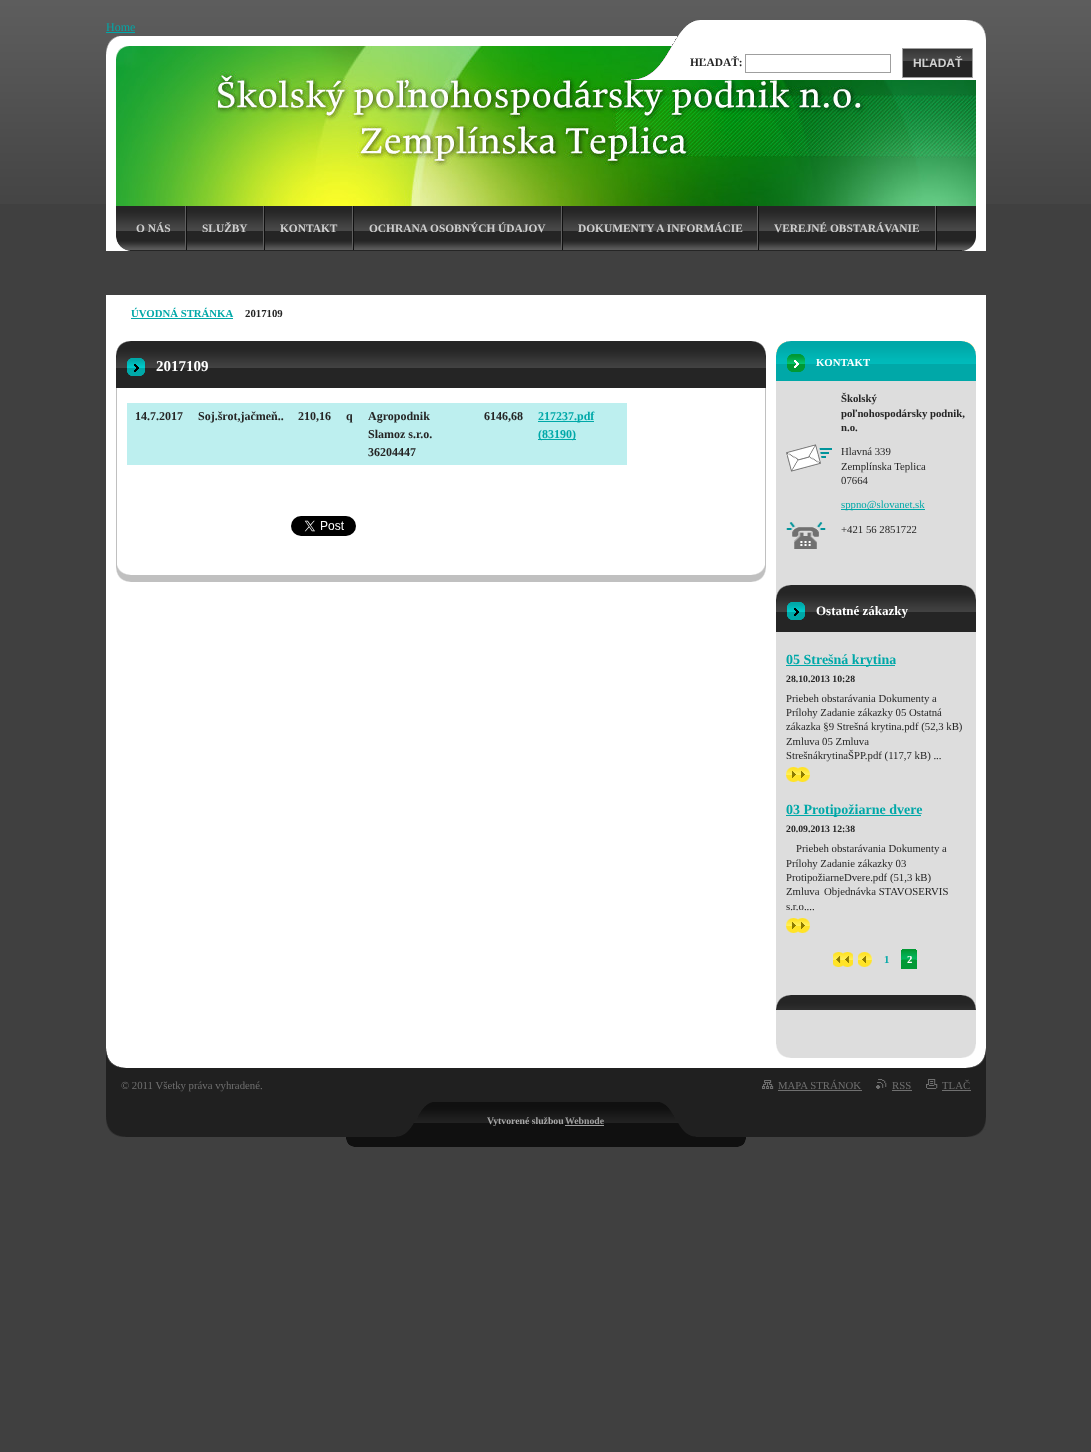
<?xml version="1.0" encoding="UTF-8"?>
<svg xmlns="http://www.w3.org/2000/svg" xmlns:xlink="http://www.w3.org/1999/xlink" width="1091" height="1452">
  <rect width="100%" height="100%" fill="#404040" />
  <image x="0" y="0" width="1091" height="204" xlink:href="image1.png" />
  <rect x="106" y="32" width="29" height="1" fill="#00a8a8" />
  <image x="106" y="59" width="880" height="147" xlink:href="image2.png" />
  <image x="116" y="46" width="860" height="160" xlink:href="image4.png" />
  <image x="106" y="36" width="571" height="23" xlink:href="image3.png" />
  <image x="106" y="206" width="880" height="45" xlink:href="image5.png" />
  <rect x="186" y="206" width="1" height="44" fill="#101010" />
  <rect x="185" y="206" width="1" height="44" fill="#5f5f5f" />
  <rect x="264" y="206" width="1" height="44" fill="#101010" />
  <rect x="263" y="206" width="1" height="44" fill="#5f5f5f" />
  <rect x="353" y="206" width="1" height="44" fill="#101010" />
  <rect x="352" y="206" width="1" height="44" fill="#5f5f5f" />
  <rect x="562" y="206" width="1" height="44" fill="#101010" />
  <rect x="561" y="206" width="1" height="44" fill="#5f5f5f" />
  <rect x="758" y="206" width="1" height="44" fill="#101010" />
  <rect x="757" y="206" width="1" height="44" fill="#5f5f5f" />
  <rect x="936" y="206" width="1" height="44" fill="#101010" />
  <rect x="935" y="206" width="1" height="44" fill="#5f5f5f" />
  <image x="116" y="237" width="13" height="14" xlink:href="image6.png" />
  <image x="631" y="20" width="355" height="60" xlink:href="image7.png" />
  <rect x="745.5" y="54.5" width="145" height="18" fill="none" stroke="#9f9f9f" />
  <rect x="903" y="61" width="69" height="16" fill="#252525" />
  <image x="903" y="49" width="69" height="12" xlink:href="image8.png" />
  <rect x="902.5" y="48.5" width="70" height="29" fill="none" stroke="#9f9f9f" />
  <rect x="106" y="295" width="880" height="773" fill="#ffffff" />
  <rect x="131" y="318" width="102" height="1" fill="#00a8a8" />
  <image x="106" y="1048" width="880" height="20" xlink:href="image9.png" />
  <image x="116" y="341" width="650" height="15" xlink:href="image10.png" />
  <rect x="765" y="388" width="1" height="177" fill="#c0c0c0" />
  <rect x="116" y="388" width="1" height="177" fill="#c0c0c0" />
  <image x="116" y="565" width="650" height="17" xlink:href="image11.png" />
  <rect x="116" y="376" width="650" height="12" fill="#252525" />
  <image x="116" y="356" width="650" height="20" xlink:href="image12.png" />
  <rect x="127" y="404" width="499" height="61" fill="#bdefef" />
  <rect x="127" y="403" width="500" height="1" fill="#bdefef" />
  <rect x="626" y="403" width="1" height="62" fill="#bdefef" />
  <rect x="538" y="421" width="56" height="1" fill="#00a8a8" />
  <rect x="538" y="439" width="38" height="1" fill="#00a8a8" />
  <image x="291" y="516" width="65" height="20" xlink:href="image13.png" />
  <rect x="776" y="381" width="200" height="663" fill="#dddddd" />
  <image x="776" y="1044" width="200" height="14" xlink:href="image14.png" />
  <image x="776" y="341" width="200" height="31" xlink:href="image16.png" />
  <image x="776" y="341" width="200" height="11" xlink:href="image15.png" />
  <rect x="776" y="372" width="200" height="9" fill="#00a8a8" />
  <image x="786" y="444" width="46" height="28" xlink:href="image17.png" />
  <rect x="841" y="509" width="42" height="1" fill="#00a8a8" />
  <rect x="883" y="509" width="42" height="1" fill="#00a8a8" />
  <image x="786" y="522" width="40" height="27" xlink:href="image18.png" />
  <image x="776" y="585" width="200" height="15" xlink:href="image19.png" />
  <rect x="776" y="620" width="200" height="12" fill="#252525" />
  <image x="776" y="600" width="200" height="20" xlink:href="image20.png" />
  <rect x="786" y="665" width="109" height="1" fill="#00a8a8" />
  <image x="786" y="767" width="24" height="15" xlink:href="image21.png" />
  <rect x="786" y="815" width="135" height="1" fill="#00a8a8" />
  <image x="786" y="918" width="24" height="15" xlink:href="image21.png" />
  <image x="901" y="950" width="16" height="19" xlink:href="image22.png" />
  <image x="833" y="952" width="20" height="15" xlink:href="image23.png" />
  <image x="858" y="952" width="14" height="15" xlink:href="image24.png" />
  <rect x="902" y="949" width="14" height="11" fill="#019934" />
  <image x="902" y="951" width="14" height="9" xlink:href="image25.png" />
  <image x="776" y="995" width="200" height="15" xlink:href="image19.png" />
  <rect x="106" y="1068" width="880" height="34" fill="#202020" />
  <image x="762" y="1080" width="12" height="9" xlink:href="image26.png" />
  <rect x="778" y="1090" width="84" height="1" fill="#707070" />
  <image x="876" y="1079" width="11" height="10" xlink:href="image27.png" />
  <rect x="892" y="1090" width="20" height="1" fill="#707070" />
  <image x="926" y="1079" width="12" height="10" xlink:href="image28.png" />
  <rect x="942" y="1090" width="29" height="1" fill="#707070" />
  <image x="106" y="1102" width="880" height="45" xlink:href="image29.png" />
  <rect x="565" y="1125" width="39" height="1" fill="#a0a0a0" />
  <text x="106" y="31" style="font-family: Liberation Serif; font-size: 12px; fill: #00a8a8">Home</text>
  <text x="136" y="232" style="font-family: Liberation Serif; font-size: 11.4px; font-weight: bold; fill: #d0d0d0">O NÁS</text>
  <text x="202" y="232" style="font-family: Liberation Serif; font-size: 11.4px; font-weight: bold; fill: #d0d0d0">SLUŽBY</text>
  <text x="280" y="232" style="font-family: Liberation Serif; font-size: 11.4px; font-weight: bold; fill: #d0d0d0">KONTAKT</text>
  <text x="369" y="232" style="font-family: Liberation Serif; font-size: 11.4px; font-weight: bold; fill: #d0d0d0">OCHRANA OSOBNÝCH ÚDAJOV</text>
  <text x="578" y="232" style="font-family: Liberation Serif; font-size: 11.4px; font-weight: bold; fill: #d0d0d0">DOKUMENTY A INFORMÁCIE</text>
  <text x="774" y="232" style="font-family: Liberation Serif; font-size: 11.4px; font-weight: bold; fill: #d0d0d0">VEREJNÉ OBSTARÁVANIE</text>
  <text x="690" y="66" style="font-family: Liberation Serif; font-size: 11.4px; font-weight: bold; fill: #252525">HĽADAŤ:</text>
  <text x="913" y="67" style="font-family: Liberation Sans; font-size: 12px; font-weight: bold; fill: #d0d0d0">HĽADAŤ</text>
  <text x="131" y="317" style="font-family: Liberation Serif; font-size: 10.75px; font-weight: bold; fill: #00a8a8">ÚVODNÁ STRÁNKA</text>
  <text x="245" y="317" style="font-family: Liberation Serif; font-size: 10.75px; font-weight: bold; fill: #252525">2017109</text>
  <text x="156" y="371" style="font-family: Liberation Serif; font-size: 15px; font-weight: bold; fill: #ffffff">2017109</text>
  <text x="135" y="420" style="font-family: Liberation Serif; font-size: 12px; font-weight: bold; fill: #252525">14.7.2017</text>
  <text x="198" y="420" style="font-family: Liberation Serif; font-size: 12px; font-weight: bold; fill: #252525">Soj.šrot,jačmeň..</text>
  <text x="298" y="420" style="font-family: Liberation Serif; font-size: 12px; font-weight: bold; fill: #252525">210,16</text>
  <text x="346" y="420" style="font-family: Liberation Serif; font-size: 12px; font-weight: bold; fill: #252525">q</text>
  <text x="368" y="420" style="font-family: Liberation Serif; font-size: 12px; font-weight: bold; fill: #252525">Agropodnik</text>
  <text x="368" y="438" style="font-family: Liberation Serif; font-size: 12px; font-weight: bold; fill: #252525">Slamoz s.r.o.</text>
  <text x="368" y="456" style="font-family: Liberation Serif; font-size: 12px; font-weight: bold; fill: #252525">36204447</text>
  <text x="484" y="420" style="font-family: Liberation Serif; font-size: 12px; font-weight: bold; fill: #252525">6146,68</text>
  <text x="538" y="420" style="font-family: Liberation Serif; font-size: 12px; font-weight: bold; fill: #00a8a8">217237.pdf</text>
  <text x="538" y="438" style="font-family: Liberation Serif; font-size: 12px; font-weight: bold; fill: #00a8a8">(83190)</text>
  <text x="816" y="366" style="font-family: Liberation Serif; font-size: 10.75px; font-weight: bold; fill: #ffffff">KONTAKT</text>
  <text x="841" y="402" style="font-family: Liberation Serif; font-size: 10.75px; font-weight: bold; fill: #252525">Školský</text>
  <text x="841" y="417" style="font-family: Liberation Serif; font-size: 10.75px; font-weight: bold; fill: #252525">poľnohospodársky podnik,</text>
  <text x="841" y="431" style="font-family: Liberation Serif; font-size: 10.75px; font-weight: bold; fill: #252525">n.o.</text>
  <text x="841" y="455" style="font-family: Liberation Serif; font-size: 10.75px; fill: #252525">Hlavná 339</text>
  <text x="841" y="470" style="font-family: Liberation Serif; font-size: 10.75px; fill: #252525">Zemplínska Teplica</text>
  <text x="841" y="484" style="font-family: Liberation Serif; font-size: 10.75px; fill: #252525">07664</text>
  <text x="841" y="508" style="font-family: Liberation Serif; font-size: 10.75px; fill: #00a8a8">sppno@slovanet.sk</text>
  <text x="841" y="533" style="font-family: Liberation Serif; font-size: 10.75px; fill: #252525">+421 56 2851722</text>
  <text x="816" y="615" style="font-family: Liberation Serif; font-size: 13px; font-weight: bold; fill: #ffffff">Ostatné zákazky</text>
  <text x="786" y="664" style="font-family: Liberation Serif; font-size: 14px; font-weight: bold; fill: #00a8a8">05 Strešná krytina</text>
  <text x="786" y="682" style="font-family: Liberation Serif; font-size: 9.75px; font-weight: bold; fill: #252525">28.10.2013 10:28</text>
  <text x="786" y="702" style="font-family: Liberation Serif; font-size: 10.75px; fill: #252525">Priebeh obstarávania Dokumenty a</text>
  <text x="786" y="716" style="font-family: Liberation Serif; font-size: 10.75px; fill: #252525">Prílohy Zadanie zákazky 05 Ostatná</text>
  <text x="786" y="730" style="font-family: Liberation Serif; font-size: 10.75px; fill: #252525">zákazka §9 Strešná krytina.pdf (52,3 kB)</text>
  <text x="786" y="745" style="font-family: Liberation Serif; font-size: 10.75px; fill: #252525">Zmluva 05 Zmluva</text>
  <text x="786" y="759" style="font-family: Liberation Serif; font-size: 10.75px; fill: #252525">StrešnákrytinaŠPP.pdf (117,7 kB) ...</text>
  <text x="786" y="814" style="font-family: Liberation Serif; font-size: 14px; font-weight: bold; fill: #00a8a8">03 Protipožiarne dvere</text>
  <text x="786" y="832" style="font-family: Liberation Serif; font-size: 9.75px; font-weight: bold; fill: #252525">20.09.2013 12:38</text>
  <text x="796" y="852" style="font-family: Liberation Serif; font-size: 10.75px; fill: #252525">Priebeh obstarávania Dokumenty a</text>
  <text x="786" y="867" style="font-family: Liberation Serif; font-size: 10.75px; fill: #252525">Prílohy Zadanie zákazky 03</text>
  <text x="786" y="881" style="font-family: Liberation Serif; font-size: 10.75px; fill: #252525">ProtipožiarneDvere.pdf (51,3 kB)</text>
  <text x="786" y="895" style="font-family: Liberation Serif; font-size: 10.75px; fill: #252525">Zmluva</text>
  <text x="824" y="895" style="font-family: Liberation Serif; font-size: 10.75px; fill: #252525">Objednávka STAVOSERVIS</text>
  <text x="786" y="910" style="font-family: Liberation Serif; font-size: 10.75px; fill: #252525">s.r.o....</text>
  <text x="884" y="963" style="font-family: Liberation Serif; font-size: 10.75px; font-weight: bold; fill: #00a8a8">1</text>
  <text x="907" y="963" style="font-family: Liberation Serif; font-size: 10.75px; font-weight: bold; fill: #ffffff">2</text>
  <text x="121" y="1089" style="font-family: Liberation Serif; font-size: 10.75px; fill: #707070">© 2011 Všetky práva vyhradené.</text>
  <text x="778" y="1089" style="font-family: Liberation Serif; font-size: 10.75px; fill: #707070">MAPA STRÁNOK</text>
  <text x="892" y="1089" style="font-family: Liberation Serif; font-size: 10.75px; fill: #707070">RSS</text>
  <text x="942" y="1089" style="font-family: Liberation Serif; font-size: 10.75px; fill: #707070">TLAČ</text>
  <text x="487" y="1124" style="font-family: Liberation Serif; font-size: 9.75px; font-weight: bold; fill: #aaaaaa">Vytvorené službou</text>
  <text x="565" y="1124" style="font-family: Liberation Serif; font-size: 9.75px; font-weight: bold; fill: #a0a0a0">Webnode</text>
</svg>
